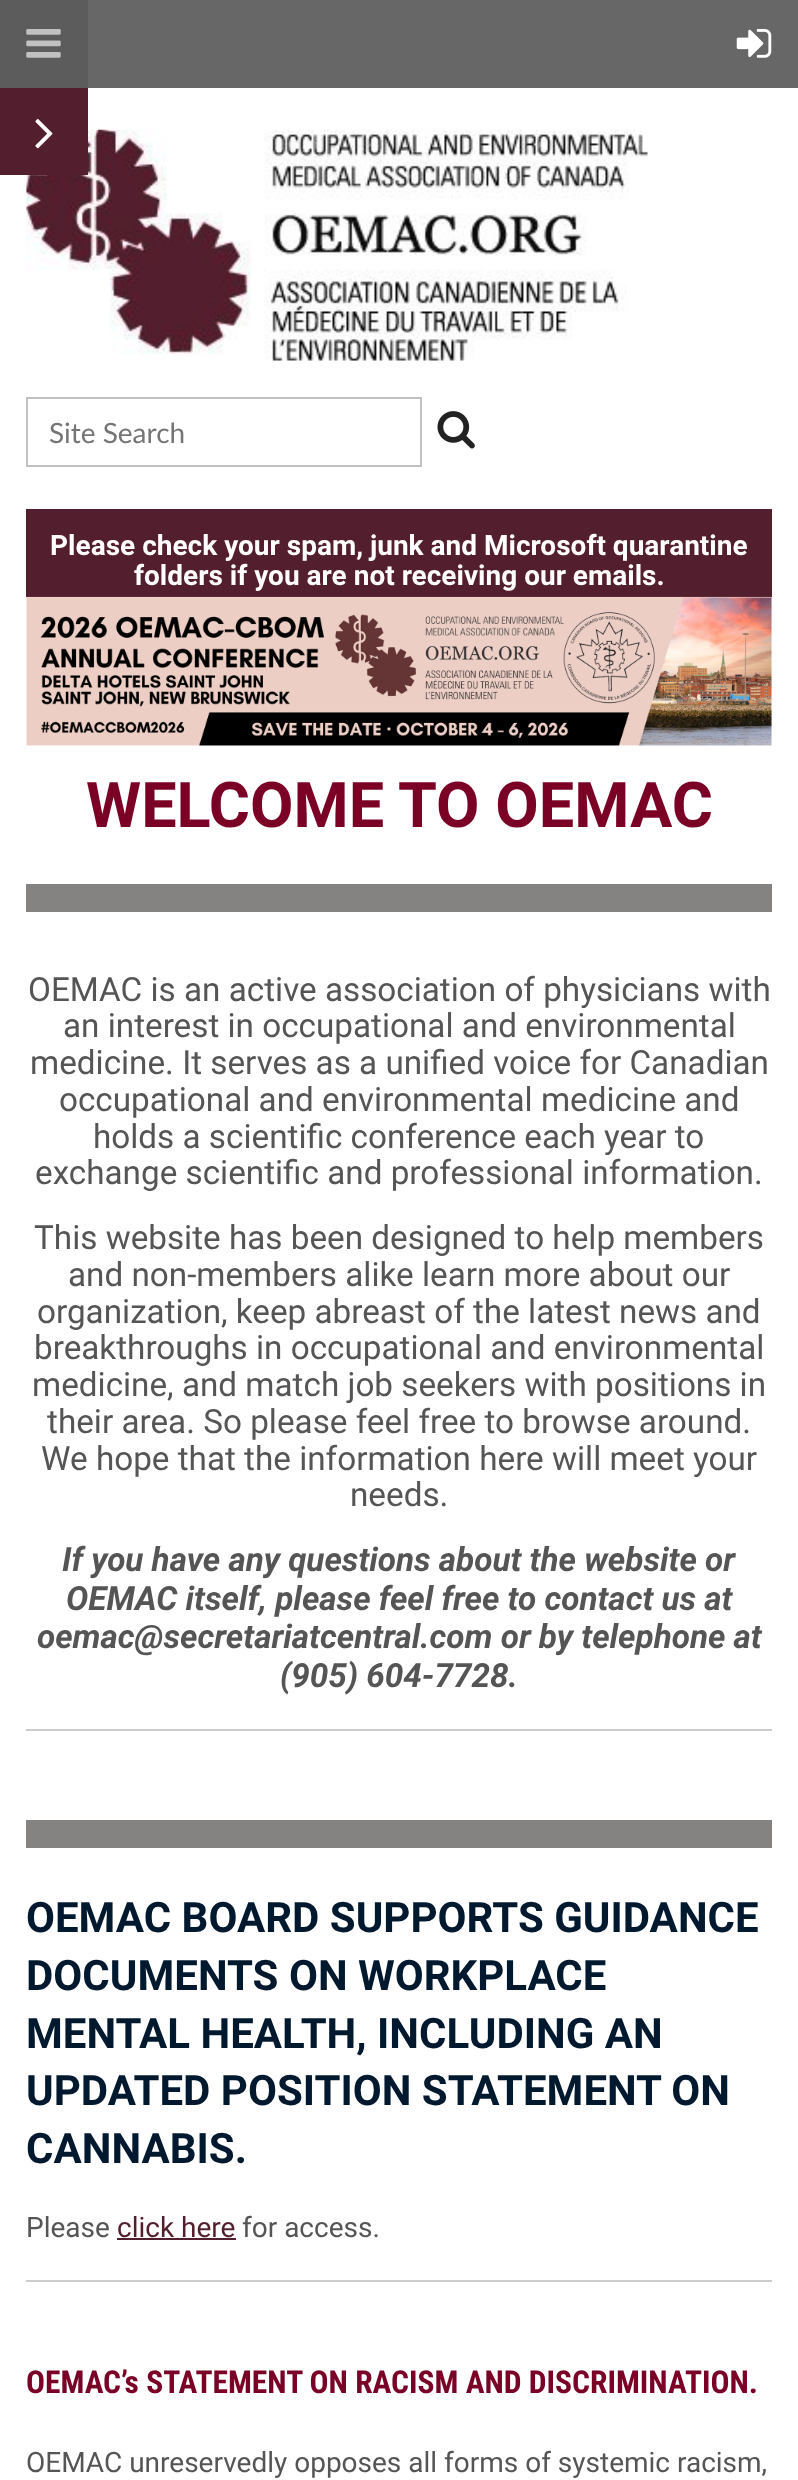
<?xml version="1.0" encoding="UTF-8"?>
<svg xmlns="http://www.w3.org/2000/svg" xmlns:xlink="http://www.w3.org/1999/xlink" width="798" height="2480">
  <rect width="100%" height="100%" fill="#ffffff" />
  <image x="26" y="129" width="622" height="232" xlink:href="image4.png" />
  <rect y="88" width="88" height="87" fill="#531e2d" />
  <image x="35" y="119" width="18" height="30" xlink:href="image1.png" />
  <rect x="88" width="710" height="88" fill="#676767" />
  <rect width="88" height="88" fill="#5c5c5c" />
  <image x="26" y="29" width="35" height="29" xlink:href="image2.png" />
  <image x="736" y="29" width="36" height="29" xlink:href="image3.png" />
  <rect x="27" y="398" width="394" height="68" fill="none" stroke="#c1c1c1" stroke-width="2" />
  <image x="437" y="411" width="38" height="38" xlink:href="image5.png" />
  <rect x="26" y="509" width="746" height="88" fill="#531e2d" />
  <image x="26" y="596" width="746" height="150" xlink:href="image6.png" />
  <rect x="26" y="884" width="746" height="28" fill="#858282" />
  <rect x="26" y="1729" width="746" height="2" fill="#cccccc" />
  <rect x="26" y="1820" width="746" height="28" fill="#858282" />
  <rect x="117" y="2238" width="119" height="2" fill="#531e2d" />
  <rect x="26" y="2280" width="746" height="2" fill="#cccccc" />
  <text x="49" y="443" style="font-family: Lato; font-size: 28px; fill: #757575">Site Search</text>
  <text x="50" y="555" style="font-family: Roboto; font-size: 28px; font-weight: bold; fill: #ffffff">Please check your spam, junk and Microsoft quarantine</text>
  <text x="134" y="585" style="font-family: Roboto; font-size: 28px; font-weight: bold; fill: #ffffff">folders if you are not receiving our emails.</text>
  <text x="86" y="827" style="font-family: Roboto; font-size: 63px; font-weight: bold; fill: #7a0026">WELCOME TO OEMAC</text>
  <text x="28" y="1001" style="font-family: Roboto; font-size: 33.25px; fill: #555555">OEMAC is an active association of physicians with</text>
  <text x="63" y="1037" style="font-family: Roboto; font-size: 33.25px; fill: #555555">an interest in occupational and environmental</text>
  <text x="30" y="1074" style="font-family: Roboto; font-size: 33.25px; fill: #555555">medicine. It serves as a unified voice for Canadian</text>
  <text x="59" y="1111" style="font-family: Roboto; font-size: 33.25px; fill: #555555">occupational and environmental medicine and</text>
  <text x="93" y="1148" style="font-family: Roboto; font-size: 33.25px; fill: #555555">holds a scientific conference each year to</text>
  <text x="35" y="1184" style="font-family: Roboto; font-size: 33.25px; fill: #555555">exchange scientific and professional information.</text>
  <text x="34" y="1249" style="font-family: Roboto; font-size: 33.25px; fill: #555555">This website has been designed to help members</text>
  <text x="68" y="1286" style="font-family: Roboto; font-size: 33.25px; fill: #555555">and non-members alike learn more about our</text>
  <text x="37" y="1323" style="font-family: Roboto; font-size: 33.25px; fill: #555555">organization, keep abreast of the latest news and</text>
  <text x="34" y="1359" style="font-family: Roboto; font-size: 33.25px; fill: #555555">breakthroughs in occupational and environmental</text>
  <text x="32" y="1396" style="font-family: Roboto; font-size: 33.25px; fill: #555555">medicine, and match job seekers with positions in</text>
  <text x="47" y="1433" style="font-family: Roboto; font-size: 33.25px; fill: #555555">their area. So please feel free to browse around.</text>
  <text x="41" y="1470" style="font-family: Roboto; font-size: 33.25px; fill: #555555">We hope that the information here will meet your</text>
  <text x="350" y="1506" style="font-family: Roboto; font-size: 33.25px; fill: #555555">needs.</text>
  <text x="62" y="1571" style="font-family: Roboto; font-size: 33.25px; font-weight: bold; font-style: italic; fill: #555555">If you have any questions about the website or</text>
  <text x="66" y="1610" style="font-family: Roboto; font-size: 33.25px; font-weight: bold; font-style: italic; fill: #555555">OEMAC itself, please feel free to contact us at</text>
  <text x="37" y="1648" style="font-family: Roboto; font-size: 33.25px; font-weight: bold; font-style: italic; fill: #555555">oemac@secretariatcentral.com or by telephone at</text>
  <text x="280" y="1687" style="font-family: Roboto; font-size: 33.25px; font-weight: bold; font-style: italic; fill: #555555">(905) 604-7728.</text>
  <text x="26" y="1932" style="font-family: Roboto; font-size: 42px; font-weight: bold; fill: #00192e">OEMAC BOARD SUPPORTS GUIDANCE</text>
  <text x="26" y="1990" style="font-family: Roboto; font-size: 42px; font-weight: bold; fill: #00192e">DOCUMENTS ON WORKPLACE</text>
  <text x="26" y="2048" style="font-family: Roboto; font-size: 42px; font-weight: bold; fill: #00192e">MENTAL HEALTH, INCLUDING AN</text>
  <text x="26" y="2105" style="font-family: Roboto; font-size: 42px; font-weight: bold; fill: #00192e">UPDATED POSITION STATEMENT ON</text>
  <text x="26" y="2163" style="font-family: Roboto; font-size: 42px; font-weight: bold; fill: #00192e">CANNABIS.</text>
  <text x="26" y="2237" style="font-family: Roboto; font-size: 28px; fill: #555555">Please</text>
  <text x="117" y="2237" style="font-family: Roboto; font-size: 28px; fill: #531e2d">click here</text>
  <text x="242" y="2237" style="font-family: Roboto; font-size: 28px; fill: #555555">for access.</text>
  <text x="26" y="2393" style="font-family: Roboto Condensed; font-size: 31.5px; font-weight: bold; fill: #7a0026">OEMAC’s STATEMENT ON RACISM AND DISCRIMINATION.</text>
  <text x="26" y="2472" style="font-family: Roboto; font-size: 28px; fill: #555555">OEMAC unreservedly opposes all forms of systemic racism,</text>
</svg>
